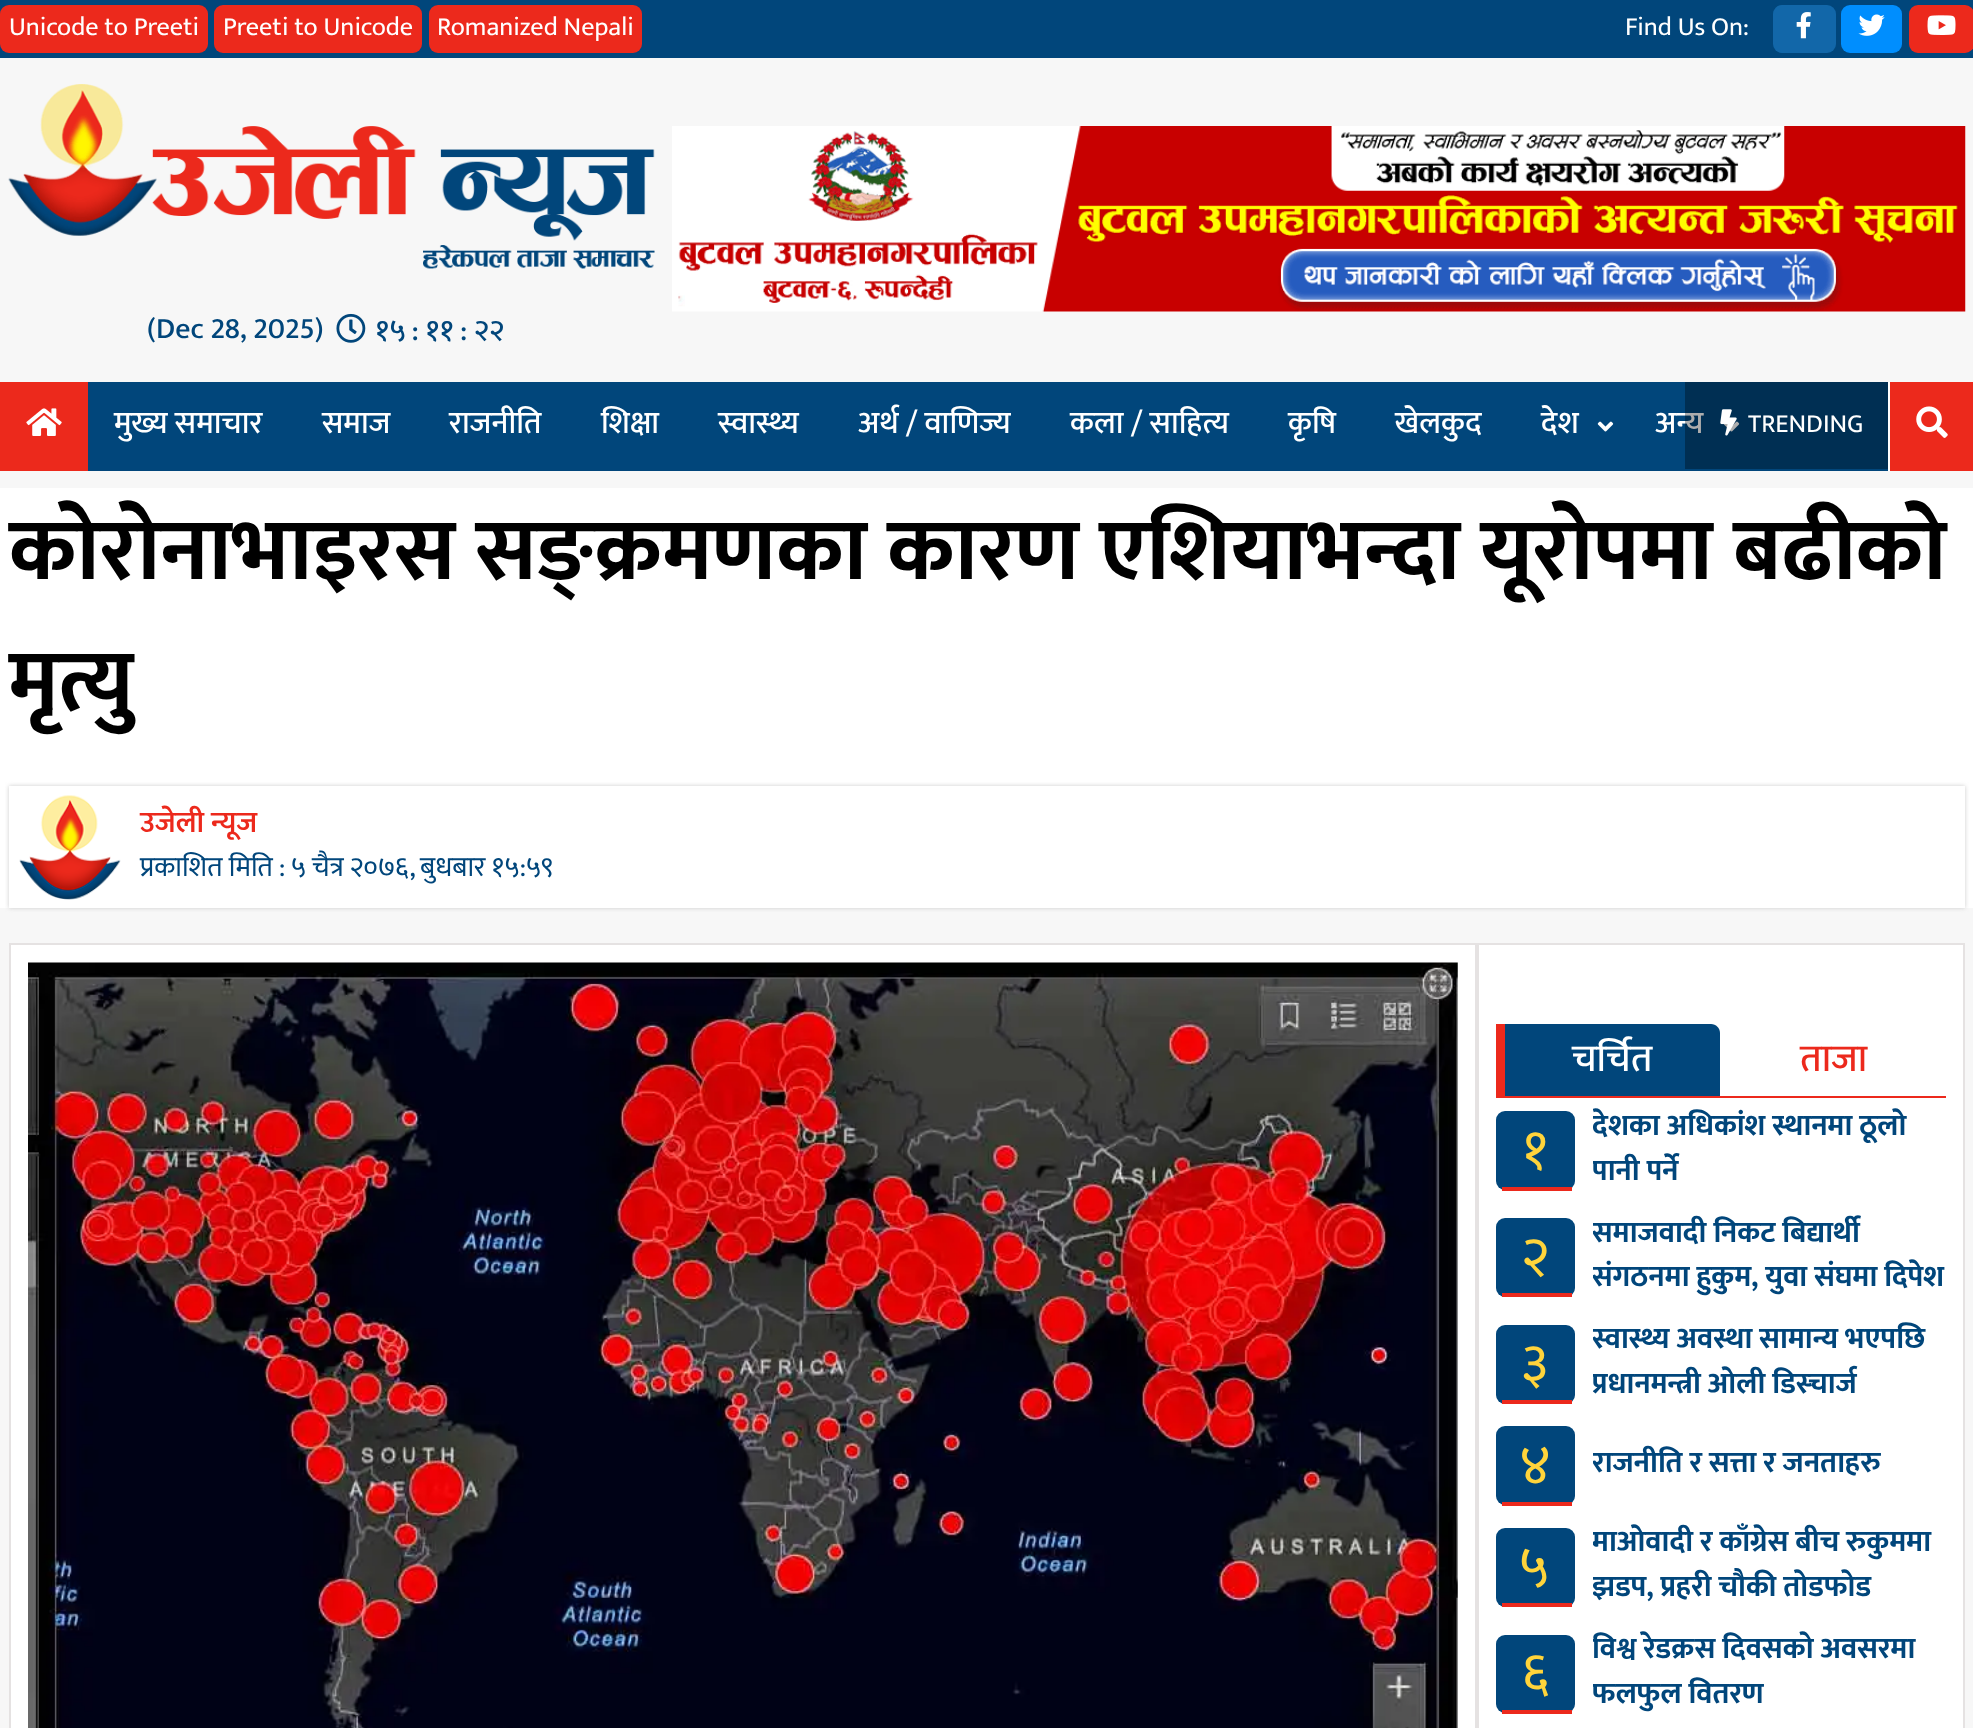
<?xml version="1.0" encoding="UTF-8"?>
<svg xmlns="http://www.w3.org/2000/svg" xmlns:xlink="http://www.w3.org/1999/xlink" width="1973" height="1728">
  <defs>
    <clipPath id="clip1"><path d="M 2 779 h 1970 v 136 h -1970 z m 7 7 h 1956 v 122 h -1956 z" clip-rule="evenodd" /></clipPath>
    <clipPath id="clip2"><rect x="1593" y="1106" width="353" height="89" /></clipPath>
    <clipPath id="clip3"><rect x="1593" y="1213" width="353" height="89" /></clipPath>
    <clipPath id="clip4"><rect x="1593" y="1320" width="353" height="89" /></clipPath>
    <clipPath id="clip5"><rect x="1593" y="1426" width="353" height="79" /></clipPath>
    <clipPath id="clip6"><rect x="1593" y="1523" width="353" height="89" /></clipPath>
    <clipPath id="clip7"><rect x="1593" y="1629" width="353" height="90" /></clipPath>
  </defs>
  <rect width="100%" height="100%" fill="#f7f7f7" />
  <rect width="1973" height="58" fill="#01467b" />
  <rect y="5" width="208" height="48" rx="9" fill="#ec291c" />
  <rect x="214" y="5" width="208" height="48" rx="9" fill="#ec291c" />
  <rect x="429" y="5" width="213" height="48" rx="9" fill="#ec291c" />
  <rect x="1773" y="5" width="63" height="48" rx="9" fill="#1267a9" />
  <image x="1796" y="12" width="15" height="27" xlink:href="image1.png" />
  <rect x="1841" y="5" width="61" height="48" rx="9" fill="#008efe" />
  <image x="1858" y="14" width="27" height="22" xlink:href="image2.png" />
  <rect x="1909" y="5" width="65" height="48" rx="9" fill="#ec291c" />
  <image x="1927" y="15" width="29" height="20" xlink:href="image3.png" />
  <image x="672" y="126" width="1294" height="186" xlink:href="image4.png" />
  <image x="8" y="84" width="647" height="185" xlink:href="image5.png" />
  <image x="336" y="313" width="30" height="30" xlink:href="image6.png" />
  <rect x="88" y="382" width="1800" height="89" fill="#01467b" />
  <rect y="382" width="88" height="89" fill="#ec291c" />
  <image x="26" y="408" width="36" height="28" xlink:href="image7.png" />
  <image x="1597" y="421" width="17" height="11" xlink:href="image8.png" />
  <image x="1723" y="421" width="17" height="11" xlink:href="image8.png" />
  <rect x="1890" y="382" width="83" height="89" fill="#ec291c" />
  <rect x="1888" y="382" width="2" height="89" fill="#ffffff" />
  <image x="1916" y="406" width="32" height="32" xlink:href="image10.png" />
  <rect y="488" width="1973" height="420" fill="#ffffff" />
  <g clip-path="url(#clip1)">
    <rect x="9" y="786" width="1956" height="122" fill="#cccccc" filter="blur(2px)" />
  </g>
  <image x="19" y="795" width="102" height="105" xlink:href="image11.png" />
  <rect x="10" y="944" width="1466" height="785" fill="#ffffff" stroke="#e5e2e2" stroke-width="2" />
  <image x="28" y="962" width="1430" height="766" xlink:href="image12.png" />
  <rect x="1478" y="944" width="486" height="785" fill="#ffffff" stroke="#e5e2e2" stroke-width="2" />
  <path d="M 1496 1024 h 215 c 5 0 9 4 9 9 v 64 h -224 z" fill="#01467b" />
  <rect x="1496" y="1024" width="9" height="72" fill="#ec291c" />
  <rect x="1496" y="1096" width="450" height="2" fill="#ec291c" />
  <rect x="1496" y="1111" width="79" height="79" rx="9" fill="#01467b" />
  <rect x="1502" y="1187" width="70" height="4" fill="#ec291c" />
  <rect x="1496" y="1218" width="79" height="79" rx="9" fill="#01467b" />
  <rect x="1502" y="1293" width="70" height="4" fill="#ec291c" />
  <rect x="1496" y="1325" width="79" height="79" rx="9" fill="#01467b" />
  <rect x="1502" y="1400" width="70" height="4" fill="#ec291c" />
  <rect x="1496" y="1426" width="79" height="79" rx="9" fill="#01467b" />
  <rect x="1502" y="1502" width="70" height="4" fill="#ec291c" />
  <rect x="1496" y="1528" width="79" height="79" rx="9" fill="#01467b" />
  <rect x="1502" y="1603" width="70" height="4" fill="#ec291c" />
  <rect x="1496" y="1635" width="79" height="78" rx="9" fill="#01467b" />
  <rect x="1502" y="1710" width="70" height="4" fill="#ec291c" />
  <text x="9" y="35" style="font-family: Mukta; font-size: 26.25px; fill: #ffffff">Unicode to Preeti</text>
  <text x="223" y="35" style="font-family: Mukta; font-size: 26.25px; fill: #ffffff">Preeti to Unicode</text>
  <text x="437" y="35" style="font-family: Mukta; font-size: 26.25px; fill: #ffffff">Romanized Nepali</text>
  <text x="1625" y="35" style="font-family: Mukta; font-size: 26.25px; fill: #ffffff">Find Us On:</text>
  <text x="147" y="338" style="font-family: Mukta; font-size: 29.75px; font-weight: 500; fill: #01467b">(Dec 28, 2025)</text>
  <text x="375" y="340" style="font-family: Mukta; font-size: 29.75px; font-weight: 500; fill: #01467b">१५ : ११ : २२</text>
  <text x="114" y="433" style="font-family: Mukta; font-size: 31.5px; font-weight: 500; fill: #ffffff">मुख्य समाचार</text>
  <text x="322" y="433" style="font-family: Mukta; font-size: 31.5px; font-weight: 500; fill: #ffffff">समाज</text>
  <text x="449" y="433" style="font-family: Mukta; font-size: 31.5px; font-weight: 500; fill: #ffffff">राजनीति</text>
  <text x="601" y="433" style="font-family: Mukta; font-size: 31.5px; font-weight: 500; fill: #ffffff">शिक्षा</text>
  <text x="718" y="433" style="font-family: Mukta; font-size: 31.5px; font-weight: 500; fill: #ffffff">स्वास्थ्य</text>
  <text x="858" y="433" style="font-family: Mukta; font-size: 31.5px; font-weight: 500; fill: #ffffff">अर्थ / वाणिज्य</text>
  <text x="1070" y="433" style="font-family: Mukta; font-size: 31.5px; font-weight: 500; fill: #ffffff">कला / साहित्य</text>
  <text x="1288" y="433" style="font-family: Mukta; font-size: 31.5px; font-weight: 500; fill: #ffffff">कृषि</text>
  <text x="1395" y="433" style="font-family: Mukta; font-size: 31.5px; font-weight: 500; fill: #ffffff">खेलकुद</text>
  <text x="1541" y="433" style="font-family: Mukta; font-size: 31.5px; font-weight: 500; fill: #ffffff">देश</text>
  <text x="1655" y="433" style="font-family: Mukta; font-size: 31.5px; font-weight: 500; fill: #ffffff">अन्य</text>
  <rect x="1685" y="382" width="203" height="87" fill="#000000" fill-opacity="0.32" />
  <image x="1720" y="409" width="17" height="27" xlink:href="image9.png" />
  <text x="1748" y="432" style="font-family: Mukta; font-size: 26.25px; fill: #ffffff">TRENDING</text>
  <text x="9" y="579" style="font-family: Mukta; font-size: 87.5px; font-weight: bold; fill: #000000">कोरोनाभाइरस सङ्क्रमणका कारण एशियाभन्दा यूरोपमा बढीको</text>
  <text x="9" y="710" style="font-family: Mukta; font-size: 87.5px; font-weight: bold; fill: #000000">मृत्यु</text>
  <text x="140" y="832" style="font-family: Mukta; font-size: 29.75px; font-weight: 600; fill: #ec291c">उजेली न्यूज</text>
  <text x="140" y="876" style="font-family: Mukta; font-size: 28px; fill: #01467b">प्रकाशित मिति :</text>
  <text x="291" y="876" word-spacing="-0.5" style="font-family: Mukta; font-size: 28px; fill: #01467b">५ चैत्र २०७६, बुधबार १५:५९</text>
  <text x="1572" y="1071" style="font-family: Mukta; font-size: 38.5px; font-weight: 500; fill: #ffffff">चर्चित</text>
  <text x="1800" y="1071" style="font-family: Mukta; font-size: 38.5px; font-weight: 500; fill: #ec291c">ताजा</text>
  <text x="1522" y="1168" style="font-family: Mukta; font-size: 56px; fill: #ffd43b">१</text>
  <g clip-path="url(#clip2)">
    <text x="1592" y="1135" style="font-family: Mukta; font-size: 29.75px; font-weight: bold; fill: #01467b">देशका अधिकांश स्थानमा ठूलो</text>
    <text x="1592" y="1180" style="font-family: Mukta; font-size: 29.75px; font-weight: bold; fill: #01467b">पानी पर्ने</text>
  </g>
  <text x="1521" y="1275" style="font-family: Mukta; font-size: 56px; fill: #ffd43b">२</text>
  <g clip-path="url(#clip3)">
    <text x="1592" y="1242" style="font-family: Mukta; font-size: 29.75px; font-weight: bold; fill: #01467b">समाजवादी निकट बिद्यार्थी</text>
    <text x="1592" y="1286" style="font-family: Mukta; font-size: 29.75px; font-weight: bold; fill: #01467b">संगठनमा हुकुम, युवा संघमा दिपेश</text>
  </g>
  <text x="1521" y="1382" style="font-family: Mukta; font-size: 56px; fill: #ffd43b">३</text>
  <g clip-path="url(#clip4)">
    <text x="1592" y="1348" style="font-family: Mukta; font-size: 29.75px; font-weight: bold; fill: #01467b">स्वास्थ्य अवस्था सामान्य भएपछि</text>
    <text x="1592" y="1393" style="font-family: Mukta; font-size: 29.75px; font-weight: bold; fill: #01467b">प्रधानमन्त्री ओली डिस्चार्ज</text>
  </g>
  <text x="1519" y="1483" style="font-family: Mukta; font-size: 56px; fill: #ffd43b">४</text>
  <g clip-path="url(#clip5)">
    <text x="1592" y="1472" style="font-family: Mukta; font-size: 29.75px; font-weight: bold; fill: #01467b">राजनीति र सत्ता र जनताहरु</text>
  </g>
  <text x="1519" y="1585" style="font-family: Mukta; font-size: 56px; fill: #ffd43b">५</text>
  <g clip-path="url(#clip6)">
    <text x="1592" y="1551" style="font-family: Mukta; font-size: 29.75px; font-weight: bold; fill: #01467b">माओवादी र काँग्रेस बीच रुकुममा</text>
    <text x="1592" y="1596" style="font-family: Mukta; font-size: 29.75px; font-weight: bold; fill: #01467b">झडप, प्रहरी चौकी तोडफोड</text>
  </g>
  <text x="1521" y="1691" style="font-family: Mukta; font-size: 56px; fill: #ffd43b">६</text>
  <g clip-path="url(#clip7)">
    <text x="1592" y="1658" style="font-family: Mukta; font-size: 29.75px; font-weight: bold; fill: #01467b">विश्व रेडक्रस दिवसको अवसरमा</text>
    <text x="1592" y="1703" style="font-family: Mukta; font-size: 29.75px; font-weight: bold; fill: #01467b">फलफुल वितरण</text>
  </g>
</svg>
